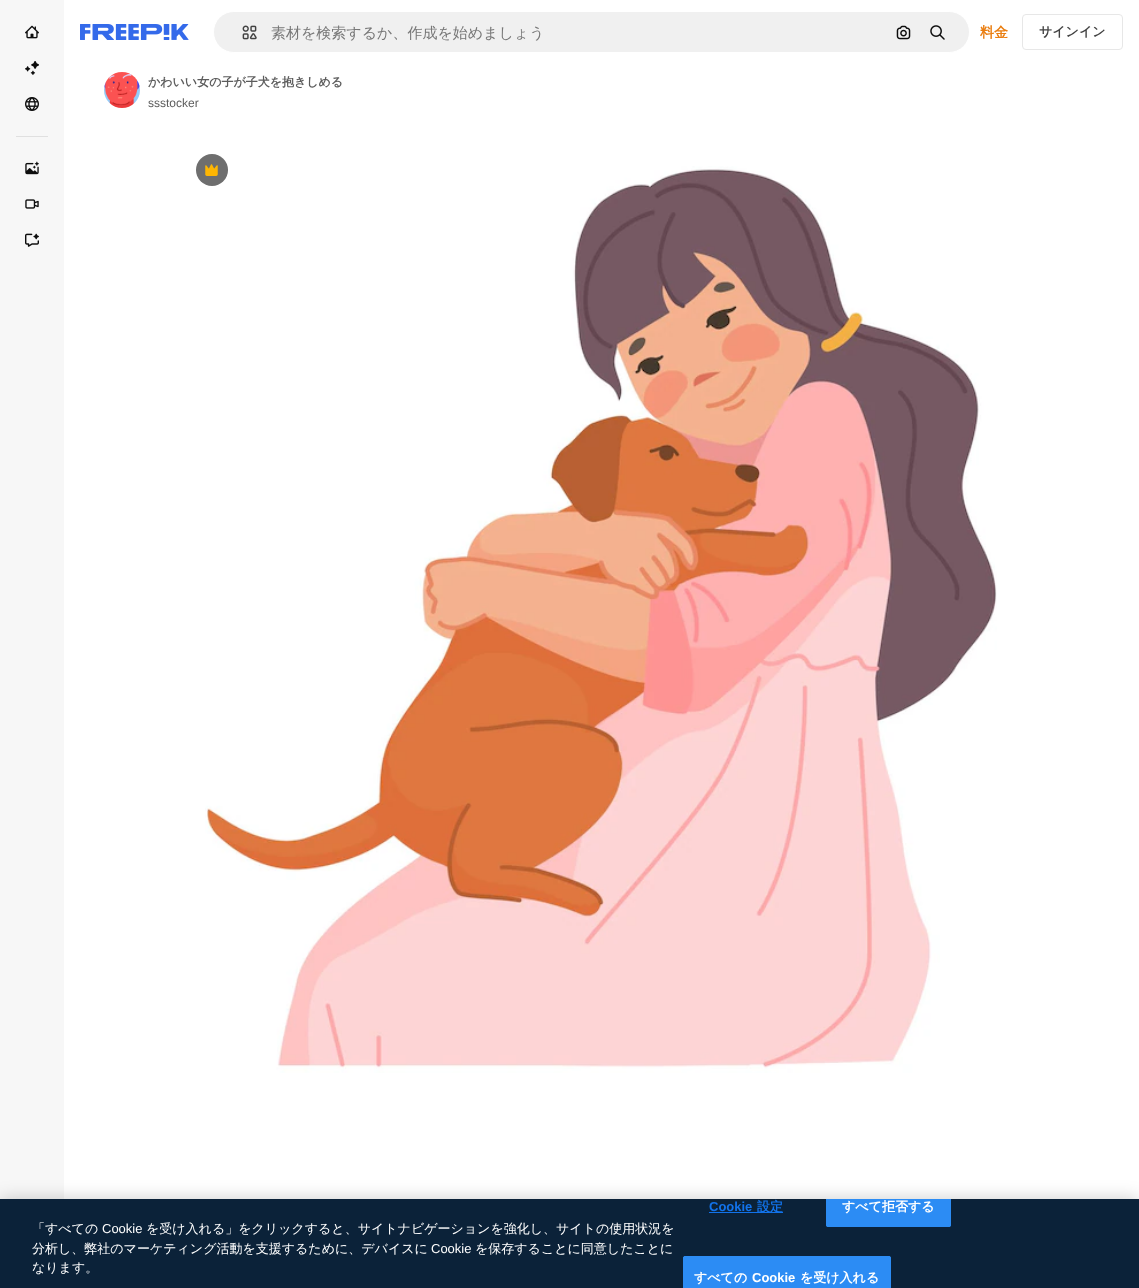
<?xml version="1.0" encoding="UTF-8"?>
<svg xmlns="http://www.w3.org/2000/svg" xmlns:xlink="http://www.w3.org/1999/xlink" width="1139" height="1288">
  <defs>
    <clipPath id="clip1"><rect y="1199" width="1139" height="89" /></clipPath>
  </defs>
  <rect width="100%" height="100%" fill="#ffffff" />
  <rect width="64" height="1199" fill="#f7f7f7" />
  <image x="25" y="25" width="14" height="14" xlink:href="image1.png" />
  <image x="25" y="61" width="14" height="14" xlink:href="image2.png" />
  <image x="25" y="97" width="14" height="14" xlink:href="image3.png" />
  <rect x="16" y="136" width="32" height="1" fill="#e0e0e0" />
  <image x="25" y="161" width="14" height="14" xlink:href="image4.png" />
  <image x="25" y="199" width="14" height="10" xlink:href="image5.png" />
  <image x="25" y="233" width="14" height="14" xlink:href="image6.png" />
  <image x="80" y="24" width="109" height="16" xlink:href="image7.png" />
  <rect x="213.5" y="11.5" width="756" height="41" rx="20.5" fill="#f0f0f0" stroke="#ffffff" />
  <image x="242" y="25" width="15" height="15" xlink:href="image8.png" />
  <image x="896" y="25" width="15" height="15" xlink:href="image9.png" />
  <image x="930" y="25" width="15" height="15" xlink:href="image10.png" />
  <rect x="1022.5" y="14.5" width="100" height="35" rx="3.5" fill="none" stroke="#e7e7e7" />
  <image x="104" y="72" width="36" height="36" xlink:href="image11.png" />
  <image x="205" y="166" width="792" height="907" xlink:href="image13.png" />
  <circle cx="212" cy="170" r="16" fill="#6e6e6e" />
  <image x="205" y="164" width="13" height="12" xlink:href="image12.png" />
  <rect y="1199" width="1139" height="89" fill="#000000" fill-opacity="0.2" filter="blur(9px)" />
  <rect y="1199" width="1139" height="89" fill="#0b2239" />
  <rect x="709" y="1212" width="74" height="1" fill="#1273eb" />
  <path d="M 826 1199 h 125 v 26 c 0 1 -1 2 -2 2 h -121 c -1 0 -2 -1 -2 -2 z" fill="#2c8cf4" />
  <g clip-path="url(#clip1)">
    <rect x="826.5" y="1186.5" width="124" height="40" rx="1.5" fill="none" stroke="#2c8cf4" />
  </g>
  <path d="M 685 1256 h 204 c 1 0 2 1 2 2 v 30 h -208 v -30 c 0 -1 1 -2 2 -2 z" fill="#2c8cf4" />
  <rect x="683.5" y="1256.5" width="207" height="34" rx="1.5" fill="none" stroke="#2c8cf4" />
  <text x="271" y="38" style="font-family: WenQuanYi Zen Hei; font-size: 15px; font-weight: 500; fill: #777777">素材を検索するか、作成を始めましょう</text>
  <text x="980" y="37" style="font-family: WenQuanYi Zen Hei; font-size: 14px; font-weight: bold; fill: #ea7e11">料金</text>
  <text x="1039" y="36" style="font-family: WenQuanYi Zen Hei; font-size: 13px; font-weight: bold; fill: #424242">サインイン</text>
  <text x="148" y="86" style="font-family: WenQuanYi Zen Hei; font-size: 12px; font-weight: bold; fill: #5c5c5c">かわいい女の子が子犬を抱きしめる</text>
  <text x="148" y="107" style="font-family: Liberation Sans; font-size: 12px; fill: #5c5c5c">ssstocker</text>
  <text x="32" y="1233" style="font-family: WenQuanYi Zen Hei; font-size: 13px; font-weight: 500; fill: #ffffff">「すべての</text>
  <text x="102" y="1233" style="font-family: Liberation Sans; font-size: 13px; fill: #ffffff">Cookie</text>
  <text x="146" y="1233" style="font-family: WenQuanYi Zen Hei; font-size: 13px; font-weight: 500; fill: #ffffff">を受け入れる」をクリックすると、サイトナビゲーションを強化し、サイトの使用状況を</text>
  <text x="32" y="1253" style="font-family: WenQuanYi Zen Hei; font-size: 13px; font-weight: 500; fill: #ffffff">分析し、弊社のマーケティング活動を支援するために、デバイスに</text>
  <text x="431" y="1253" style="font-family: Liberation Sans; font-size: 13px; fill: #ffffff">Cookie</text>
  <text x="475" y="1253" style="font-family: WenQuanYi Zen Hei; font-size: 13px; font-weight: 500; fill: #ffffff">を保存することに同意したことに</text>
  <text x="32" y="1272" style="font-family: WenQuanYi Zen Hei; font-size: 13px; font-weight: 500; fill: #ffffff">なります。</text>
  <text x="709" y="1211" style="font-family: Liberation Sans; font-size: 13px; font-weight: bold; fill: #1273eb">Cookie</text>
  <text x="757" y="1211" style="font-family: WenQuanYi Zen Hei; font-size: 13px; font-weight: bold; fill: #1273eb">設定</text>
  <text x="842" y="1211" style="font-family: WenQuanYi Zen Hei; font-size: 13px; font-weight: bold; fill: #ffffff">すべて拒否する</text>
  <text x="694" y="1282" style="font-family: WenQuanYi Zen Hei; font-size: 13px; font-weight: bold; fill: #ffffff">すべての</text>
  <text x="752" y="1282" style="font-family: Liberation Sans; font-size: 13px; font-weight: bold; fill: #ffffff">Cookie</text>
  <text x="800" y="1282" style="font-family: WenQuanYi Zen Hei; font-size: 13px; font-weight: bold; fill: #ffffff">を受け入れる</text>
</svg>
